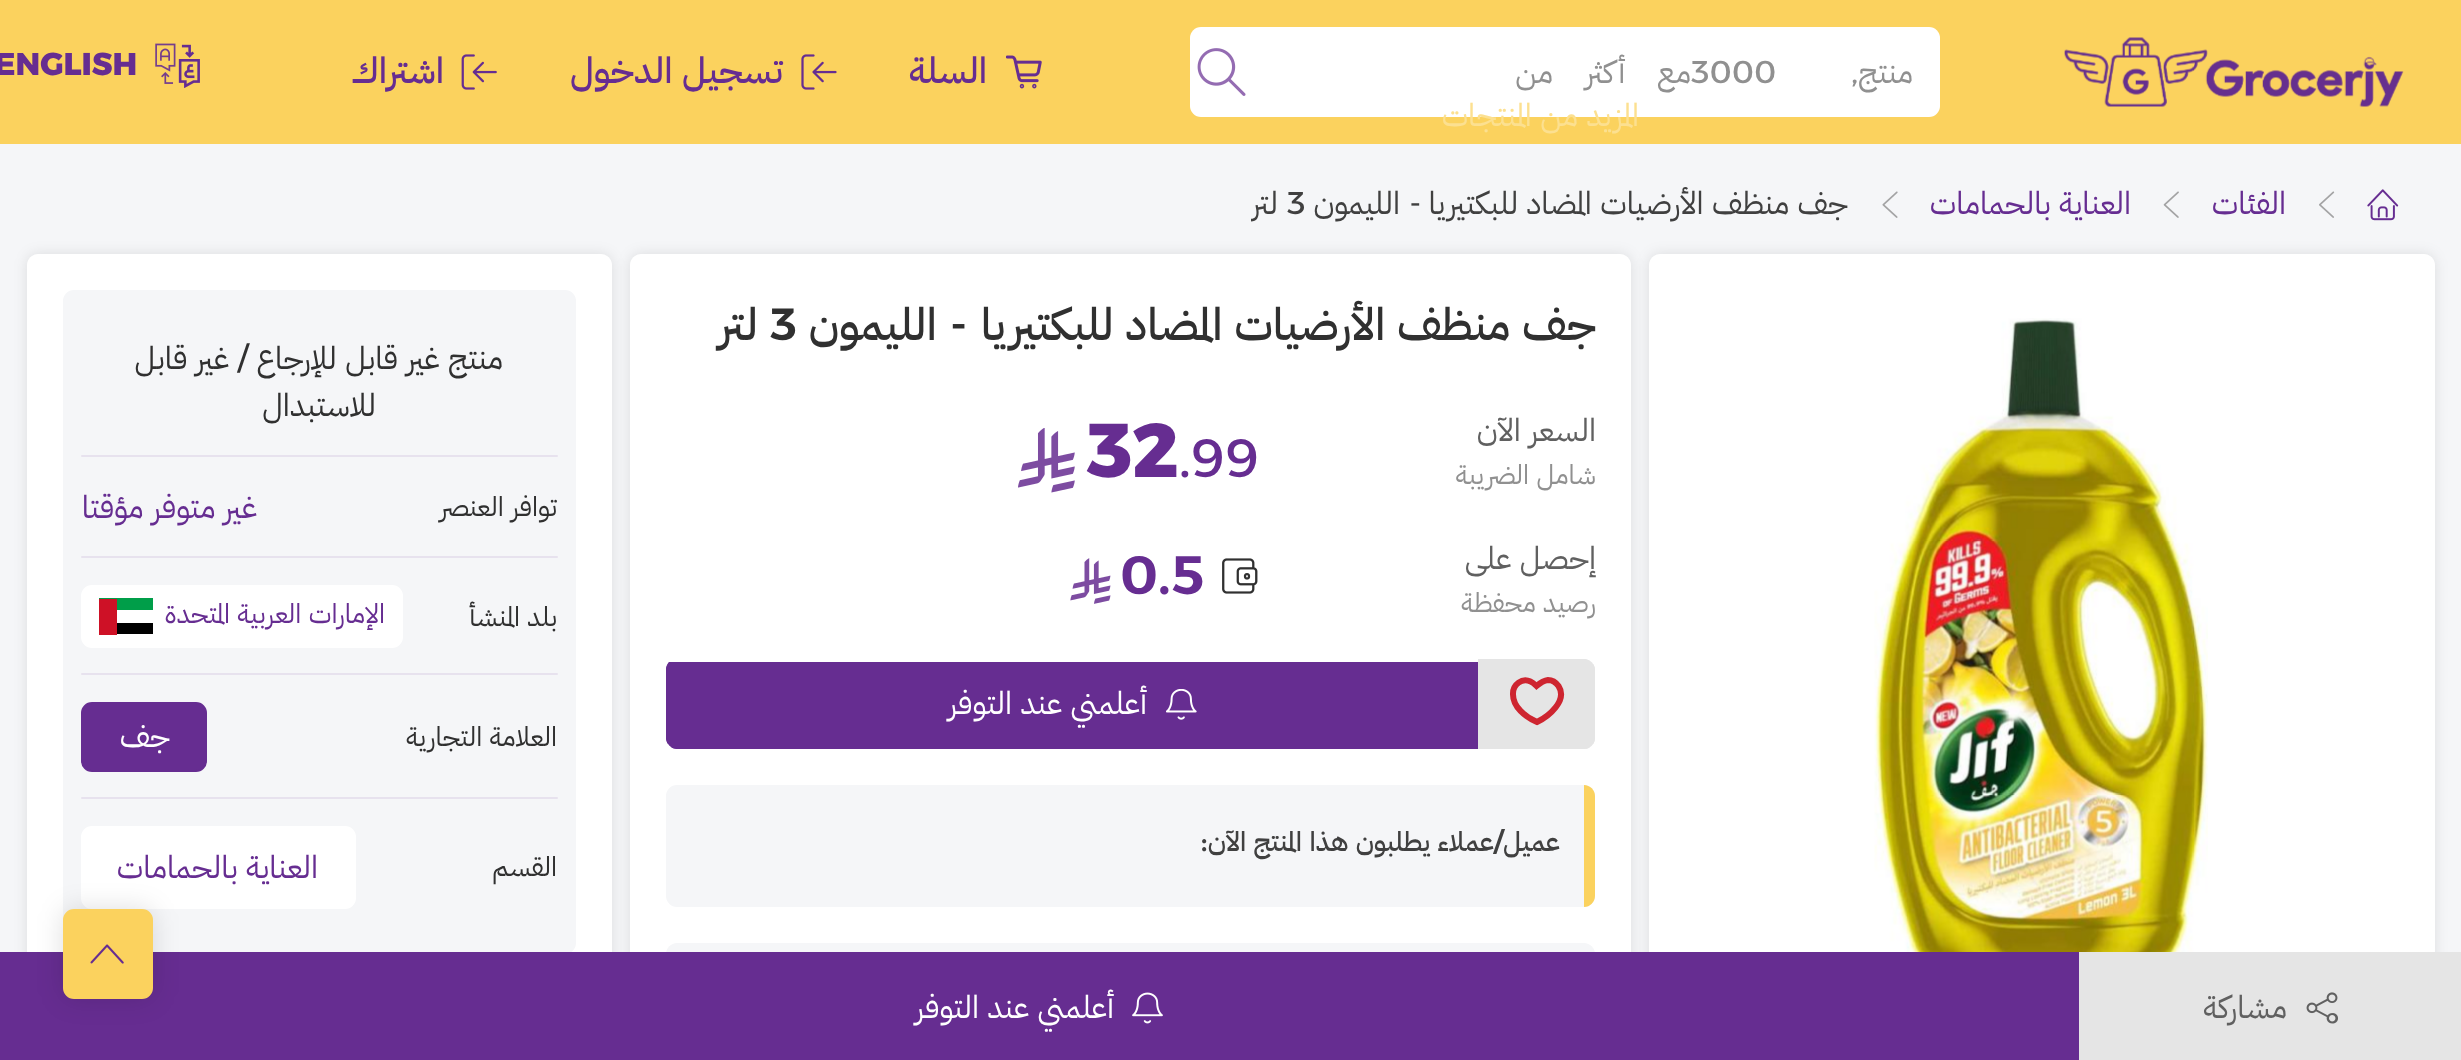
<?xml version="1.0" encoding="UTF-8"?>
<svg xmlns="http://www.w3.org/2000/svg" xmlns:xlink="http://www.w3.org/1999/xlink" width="2461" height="1060">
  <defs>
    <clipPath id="clip1"><rect x="666" y="659" width="929" height="90" rx="11" /></clipPath>
    <clipPath id="clip2"><rect x="1251" y="180" width="599" height="47" /></clipPath>
  </defs>
  <rect width="100%" height="100%" fill="#f5f6f8" />
  <rect width="2461" height="144" fill="#fbd25e" />
  <image x="2064" y="37" width="340" height="70" xlink:href="image1.png" />
  <rect x="1190" y="27" width="750" height="90" rx="11" fill="#ffffff" />
  <image x="1197" y="48" width="49" height="48" xlink:href="image2.png" />
  <image x="1006" y="55" width="36" height="34" xlink:href="image3.png" />
  <image x="801" y="54" width="36" height="36" xlink:href="image4.png" />
  <image x="461" y="54" width="36" height="36" xlink:href="image5.png" />
  <image x="155" y="43" width="45" height="45" xlink:href="image6.png" />
  <image x="2367" y="189" width="32" height="32" xlink:href="image7.png" />
  <image x="2319" y="191" width="16" height="27" xlink:href="image8.png" />
  <image x="2163" y="191" width="16" height="27" xlink:href="image9.png" />
  <image x="1882" y="191" width="16" height="27" xlink:href="image10.png" />
  <rect x="1649" y="254" width="786" height="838" rx="11" fill="#000000" fill-opacity="0.1" filter="blur(7px)" />
  <path d="M 1660 254 h 764 c 6 0 11 5 11 11 v 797 h -786 v -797 c 0 -6 5 -11 11 -11 z" fill="#ffffff" />
  <image x="1874" y="318" width="334" height="634" xlink:href="image11.png" />
  <rect x="630" y="254" width="1001" height="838" rx="11" fill="#000000" fill-opacity="0.1" filter="blur(7px)" />
  <path d="M 641 254 h 979 c 6 0 11 5 11 11 v 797 h -1001 v -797 c 0 -6 5 -11 11 -11 z" fill="#ffffff" />
  <image x="1018" y="428" width="57" height="65" xlink:href="image12.png" />
  <image x="1222" y="558" width="36" height="36" xlink:href="image13.png" />
  <image x="1070" y="558" width="41" height="46" xlink:href="image14.png" />
  <path d="M 1478 659 h 106 c 6 0 11 5 11 11 v 68 c 0 6 -5 11 -11 11 h -106 z" fill="#e5e5e5" />
  <path d="M 1478 659 v 90 h 106 c 2 0 5 -1 6 -2 h -110 v -86 h 110 c -1 -1 -4 -2 -6 -2 z m 117 11 c 0 -2 -1 -5 -2 -6 v 80 c 1 -1 2 -4 2 -6 z" fill="#e5e5e5" fill-rule="evenodd" />
  <path d="M 1537 722 c -11.5 -5 -24.5 -15 -24 -28.5 c 0 -9 9 -16 17.5 -12 c 2.5 1 4.5 3 6 4.5 c 3.5 -3 6.5 -5.5 11.5 -6 c 4 0 8 2.5 10.5 6 c 9.5 14.5 -10 30.5 -21.5 36 z" fill="none" stroke="#ce2530" stroke-width="6" />
  <g clip-path="url(#clip1)">
    <path d="M 666 662 h 812 v 87 h -801 c -6 0 -11 -5 -11 -11 z" fill="#662d91" />
  </g>
  <path d="M 668 664 h 808 v 83 h -805 c 1 1 4 2 6 2 h 801 v -87 h -809 c -2 2 -3 5 -3 8 v 68 c 0 2 1 5 2 6 z" fill="#662d91" />
  <image x="1166" y="689" width="31" height="31" xlink:href="image15.png" />
  <rect x="666" y="785" width="929" height="122" rx="11" fill="#f5f6f8" />
  <path d="M 1584 785 c 6 0 11 5 11 11 v 100 c 0 6 -5 11 -11 11 z" fill="#fbd25e" />
  <path d="M 677 943 h 907 c 6 0 11 5 11 11 v 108 h -929 v -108 c 0 -6 5 -11 11 -11 z" fill="#f5f6f8" />
  <rect x="27" y="254" width="585" height="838" rx="11" fill="#000000" fill-opacity="0.1" filter="blur(7px)" />
  <path d="M 38 254 h 563 c 6 0 11 5 11 11 v 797 h -585 v -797 c 0 -6 5 -11 11 -11 z" fill="#ffffff" />
  <rect x="63" y="290" width="513" height="664" rx="11" fill="#f5f6f8" />
  <rect x="81" y="455" width="477" height="2" rx="1" fill="#e7e2ee" />
  <rect x="81" y="556" width="477" height="2" rx="1" fill="#e7e2ee" />
  <rect x="81" y="585" width="322" height="63" rx="11" fill="#ffffff" />
  <rect x="99" y="598" width="54" height="12" fill="#009e49" />
  <rect x="117" y="623" width="36" height="11" fill="#000000" />
  <rect x="99" y="599" width="18" height="36" fill="#ce1126" />
  <rect x="81" y="673" width="477" height="2" rx="1" fill="#e7e2ee" />
  <rect x="82" y="703" width="124" height="68" rx="10" fill="#662d91" stroke="#662d91" stroke-width="2" />
  <rect x="81" y="797" width="477" height="2" rx="1" fill="#e7e2ee" />
  <rect x="81" y="826" width="275" height="83" rx="11" fill="#ffffff" />
  <rect x="2079" y="952" width="382" height="108" fill="#e5e5e5" />
  <image x="2306" y="992" width="32" height="32" xlink:href="image16.png" />
  <rect y="952" width="2079" height="108" fill="#662d91" />
  <image x="1132" y="992" width="31" height="32" xlink:href="image17.png" />
  <rect x="63" y="909" width="90" height="90" rx="11" fill="#000000" fill-opacity="0.13" filter="blur(13.5px)" />
  <rect x="64" y="910" width="88" height="88" rx="10" fill="#fbd25e" stroke="#fbd25e" stroke-width="2" />
  <image x="90" y="944" width="34" height="20" xlink:href="image18.png" />
  <text x="1913" y="83" style="font-family: IBM Plex Sans Arabic; font-size: 31.5px; direction: rtl; fill: #909090">منتج</text>
  <text x="1858" y="83" style="font-family: Alexandria; font-size: 31.5px; direction: rtl; fill: #909090">,</text>
  <text x="1691" y="83" style="font-family: Alexandria; font-size: 31.5px; fill: #909090">3000</text>
  <text x="1691" y="83" word-spacing="25" style="font-family: IBM Plex Sans Arabic; font-size: 31.5px; direction: rtl; fill: #909090">مع أكثر من</text>
  <text x="1639" y="126" word-spacing="1" style="font-family: IBM Plex Sans Arabic; font-size: 31.5px; direction: rtl; fill: #fce090">المزيد من المنتجات</text>
  <text x="987" y="83" style="font-family: IBM Plex Sans Arabic; font-size: 36px; font-weight: 500; direction: rtl; fill: #662d91">السلة</text>
  <text x="783" y="83" word-spacing="1" style="font-family: IBM Plex Sans Arabic; font-size: 36px; font-weight: 500; direction: rtl; fill: #662d91">تسجيل الدخول</text>
  <text x="444" y="83" style="font-family: IBM Plex Sans Arabic; font-size: 36px; font-weight: 500; direction: rtl; fill: #662d91">اشتراك</text>
  <text x="-6" y="75" style="font-family: Alexandria; font-size: 31.5px; font-weight: 800; fill: #662d91">ENGLISH</text>
  <text x="2286" y="214" style="font-family: IBM Plex Sans Arabic; font-size: 31.5px; direction: rtl; fill: #662d91">الفئات</text>
  <text x="2131" y="214" word-spacing="1" style="font-family: IBM Plex Sans Arabic; font-size: 31.5px; direction: rtl; fill: #662d91">العناية بالحمامات</text>
  <text x="1848" y="214" word-spacing="1" style="font-family: IBM Plex Sans Arabic; font-size: 31.5px; direction: rtl; fill: #404040">جف منظف الأرضيات المضاد للبكتيريا</text>
  <text x="1421" y="214" style="font-family: Alexandria; font-size: 31.5px; direction: rtl; fill: #404040">-</text>
  <text x="1400" y="214" style="font-family: IBM Plex Sans Arabic; font-size: 31.5px; direction: rtl; fill: #404040">الليمون</text>
  <text x="1287" y="214" style="font-family: Alexandria; font-size: 31.5px; fill: #404040">3</text>
  <g clip-path="url(#clip2)">
    <text x="1278" y="214" style="font-family: IBM Plex Sans Arabic; font-size: 31.5px; direction: rtl; fill: #404040">لتر</text>
  </g>
  <text x="1596" y="340" word-spacing="1" style="font-family: IBM Plex Sans Arabic; font-size: 45px; font-weight: 500; direction: rtl; fill: #303030">جف منظف الأرضيات المضاد للبكتيريا</text>
  <text x="967" y="340" style="font-family: Alexandria; font-size: 45px; font-weight: 600; direction: rtl; fill: #303030">-</text>
  <text x="937" y="340" style="font-family: IBM Plex Sans Arabic; font-size: 45px; font-weight: 500; direction: rtl; fill: #303030">الليمون</text>
  <text x="770" y="340" style="font-family: Alexandria; font-size: 45px; font-weight: 600; fill: #303030">3</text>
  <text x="758" y="340" style="font-family: IBM Plex Sans Arabic; font-size: 45px; font-weight: 500; direction: rtl; fill: #303030">لتر</text>
  <text x="1596" y="441" word-spacing="1" style="font-family: IBM Plex Sans Arabic; font-size: 31.5px; direction: rtl; fill: #606060">السعر الآن</text>
  <text x="1596" y="484" word-spacing="1" style="font-family: IBM Plex Sans Arabic; font-size: 27px; direction: rtl; fill: #909090">شامل الضريبة</text>
  <text x="1179" y="477" style="font-family: Alexandria; font-size: 54px; fill: #662d91">.99</text>
  <text x="1086" y="477" style="font-family: Alexandria; font-size: 76px; font-weight: 800; fill: #662d91">32</text>
  <text x="1596" y="569" word-spacing="1" style="font-family: IBM Plex Sans Arabic; font-size: 31.5px; direction: rtl; fill: #606060">إحصل على</text>
  <text x="1596" y="612" word-spacing="1" style="font-family: IBM Plex Sans Arabic; font-size: 27px; direction: rtl; fill: #909090">رصيد محفظة</text>
  <text x="1120" y="594" style="font-family: Alexandria; font-size: 54px; font-weight: 600; fill: #662d91">0.5</text>
  <text x="1147" y="714" word-spacing="1" style="font-family: IBM Plex Sans Arabic; font-size: 31.5px; direction: rtl; fill: #ffffff">أعلمني عند التوفر</text>
  <text x="1503" y="851" style="font-family: Alexandria; font-size: 27px; font-weight: 600; direction: rtl; fill: #404040">/</text>
  <text x="1560" y="851" style="font-family: IBM Plex Sans Arabic; font-size: 27px; font-weight: 500; direction: rtl; fill: #404040">عميل</text>
  <text x="1494" y="851" word-spacing="1" style="font-family: IBM Plex Sans Arabic; font-size: 27px; font-weight: 500; direction: rtl; fill: #404040">عملاء يطلبون هذا المنتج الآن</text>
  <text x="1201" y="851" style="font-family: Alexandria; font-size: 27px; font-weight: 600; fill: #404040">:</text>
  <text x="503" y="369" word-spacing="1" style="font-family: IBM Plex Sans Arabic; font-size: 31.5px; direction: rtl; fill: #303030">منتج غير قابل للإرجاع</text>
  <text x="248" y="369" style="font-family: Alexandria; font-size: 31.5px; direction: rtl; fill: #303030">/</text>
  <text x="229" y="369" word-spacing="1" style="font-family: IBM Plex Sans Arabic; font-size: 31.5px; direction: rtl; fill: #303030">غير قابل</text>
  <text x="376" y="416" style="font-family: IBM Plex Sans Arabic; font-size: 31.5px; direction: rtl; fill: #303030">للاستبدال</text>
  <text x="557" y="516" word-spacing="1" style="font-family: IBM Plex Sans Arabic; font-size: 27px; direction: rtl; fill: #303030">توافر العنصر</text>
  <text x="257" y="518" word-spacing="1" style="font-family: IBM Plex Sans Arabic; font-size: 31.5px; direction: rtl; fill: #662d91">غير متوفر مؤقتا</text>
  <text x="557" y="626" word-spacing="1" style="font-family: IBM Plex Sans Arabic; font-size: 27px; direction: rtl; fill: #303030">بلد المنشأ</text>
  <text x="385" y="623" word-spacing="1" style="font-family: IBM Plex Sans Arabic; font-size: 27px; direction: rtl; fill: #662d91">الإمارات العربية المتحدة</text>
  <text x="557" y="746" word-spacing="1" style="font-family: IBM Plex Sans Arabic; font-size: 27px; direction: rtl; fill: #303030">العلامة التجارية</text>
  <text x="170" y="747" style="font-family: IBM Plex Sans Arabic; font-size: 31.5px; direction: rtl; fill: #ffffff">جف</text>
  <text x="557" y="876" style="font-family: IBM Plex Sans Arabic; font-size: 27px; direction: rtl; fill: #303030">القسم</text>
  <text x="318" y="878" word-spacing="1" style="font-family: IBM Plex Sans Arabic; font-size: 31.5px; direction: rtl; fill: #662d91">العناية بالحمامات</text>
  <text x="2287" y="1018" style="font-family: IBM Plex Sans Arabic; font-size: 31.5px; direction: rtl; fill: #606060">مشاركة</text>
  <text x="1114" y="1018" word-spacing="1" style="font-family: IBM Plex Sans Arabic; font-size: 31.5px; direction: rtl; fill: #ffffff">أعلمني عند التوفر</text>
</svg>
